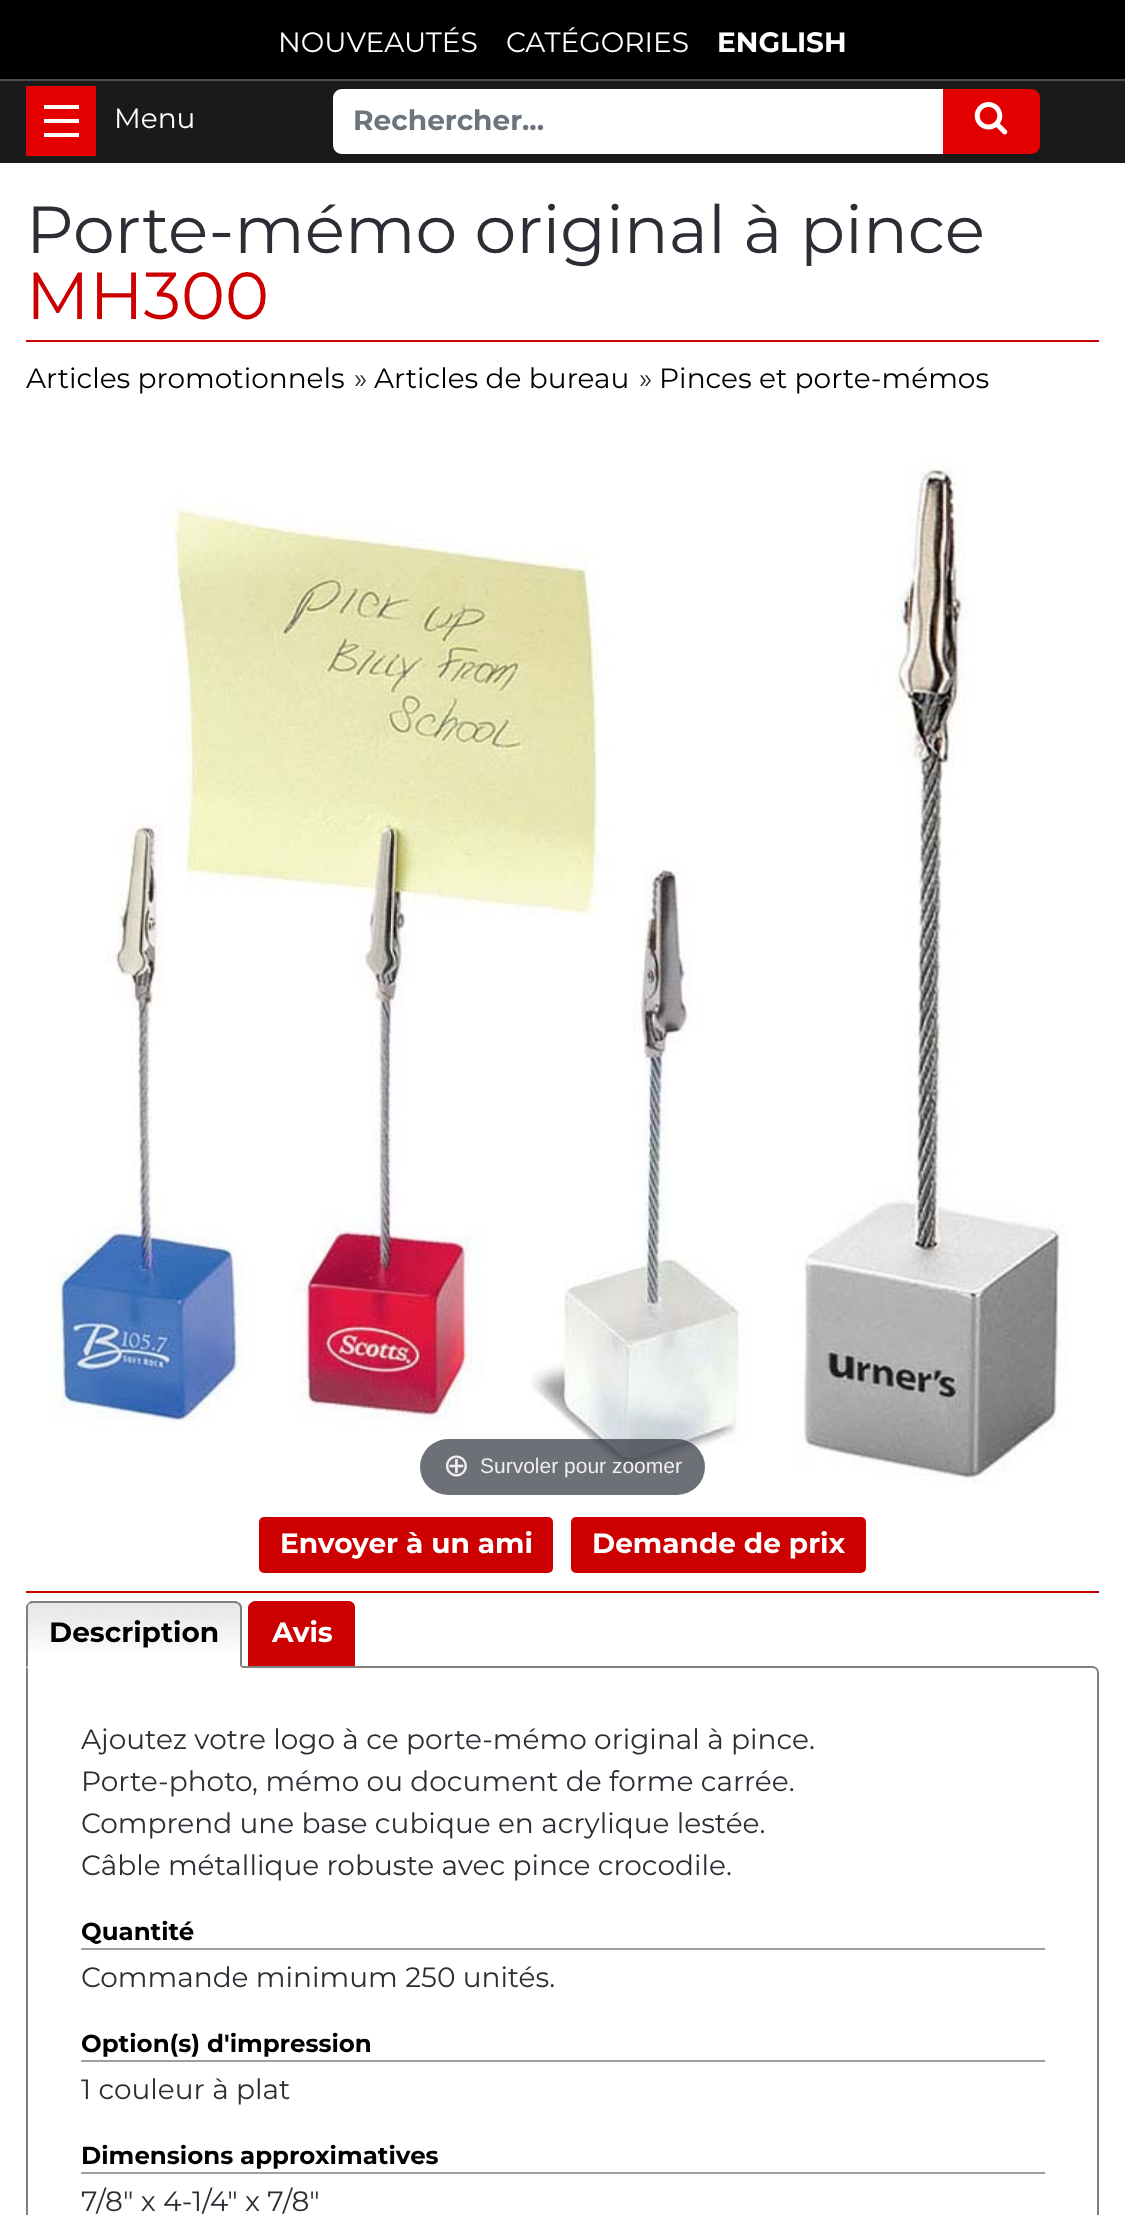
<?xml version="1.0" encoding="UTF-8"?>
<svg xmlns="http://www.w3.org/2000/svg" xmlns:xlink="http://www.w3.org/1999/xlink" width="1125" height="2215">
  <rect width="100%" height="100%" fill="#ffffff" />
  <rect y="81" width="1125" height="82" fill="#1a1a1a" />
  <rect width="1125" height="79" fill="#000000" />
  <rect y="79" width="1125" height="2" fill="#4d4d4d" />
  <rect x="26" y="86" width="70" height="70" fill="#e20000" />
  <rect x="44" y="119" width="35" height="4" fill="#ffffff" />
  <rect x="44" y="105" width="35" height="4" fill="#ffffff" />
  <rect x="44" y="133" width="35" height="4" fill="#ffffff" />
  <path d="M 342 89 h 603 v 65 h -603 c -5 0 -9 -4 -9 -9 v -47 c 0 -5 4 -9 9 -9 z" fill="#ffffff" />
  <path d="M 943 89 h 88 c 5 0 9 4 9 9 v 47 c 0 5 -4 9 -9 9 h -88 z" fill="#e20000" />
  <image x="974" y="102" width="34" height="33" xlink:href="image1.png" />
  <rect x="26" y="340" width="1073" height="2" fill="#cc0000" />
  <image x="49" y="462" width="1019" height="1021" xlink:href="image2.png" />
  <rect x="420" y="1439" width="285" height="56" rx="28" fill="#31333d" fill-opacity="0.7" />
  <rect x="259" y="1517" width="294" height="56" rx="5" fill="#cc0000" />
  <rect x="571" y="1517" width="295" height="56" rx="5" fill="#cc0000" />
  <rect x="26" y="1591" width="1073" height="2" fill="#cc0000" />
  <path d="M 27 1667 h 1065 c 3.5 0 6 2.5 6 6 v 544 c 0 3.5 -2.5 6 -6 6 h -1059 c -3.5 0 -6 -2.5 -6 -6 z" fill="none" stroke="#808080" stroke-width="2" />
  <path d="M 33 1601 h 202 c 4 0 7 3 7 7 v 60 h -216 v -60 c 0 -4 3 -7 7 -7 z" fill="#ffffff" />
  <image x="26" y="1602" width="216" height="49" xlink:href="image3.png" />
  <path d="M 33 1603 c -1 0 -3 1 -4 1 l -1 -1 l 3 -2 h 205 l 4 2 l -2 1 c -1 0 -2 -1 -4 -1 z" fill="#808080" />
  <path d="M 240 1603 l 2 3 v 62 l -2 -2 v -59 l -2 -3 z" fill="#808080" />
  <path d="M 242 1668 l -2 -2 h -212 l -2 2 z" fill="#ffffff" />
  <path d="M 26 1668 v -62 l 2 -3 l 1 1 c -1 1 -1 2 -1 4 v 58 z" fill="#808080" />
  <path d="M 256 1601 h 92 c 4 0 7 3 7 7 v 58 h -106 v -58 c 0 -4 3 -7 7 -7 z" fill="#cc0000" />
  <path d="M 256 1601 h 92 c 4 0 7 3 7 7 v 58 h -107 v -58 c 0 -4 4 -7 8 -7 z m 0 2 h 92 c 3 0 6 2 6 5 v 58 h -104 v -58 c 0 -3 3 -5 6 -5 z" fill="#cc0000" fill-rule="evenodd" />
  <rect x="81" y="1948" width="964" height="2" fill="#9f9f9f" />
  <rect x="81" y="2060" width="964" height="2" fill="#9f9f9f" />
  <rect x="81" y="2172" width="964" height="2" fill="#9f9f9f" />
  <text x="278" y="52" style="font-family: Montserrat; font-size: 28px; fill: #ffffff">NOUVEAUTÉS</text>
  <text x="506" y="52" style="font-family: Montserrat; font-size: 28px; fill: #ffffff">CATÉGORIES</text>
  <text x="717" y="52" style="font-family: Montserrat; font-size: 28px; font-weight: bold; fill: #ffffff">ENGLISH</text>
  <text x="114" y="128" style="font-family: Montserrat; font-size: 28px; fill: #ffffff">Menu</text>
  <text x="353" y="130" style="font-family: Montserrat; font-size: 28px; font-weight: bold; fill: #6c757d">Rechercher...</text>
  <text x="26" y="253" style="font-family: Montserrat; font-size: 66.5px; fill: #2c2e35">Porte-mémo original à pince</text>
  <text x="26" y="319" style="font-family: Montserrat; font-size: 66.5px; fill: #cc0000">MH300</text>
  <text x="26" y="388" style="font-family: Montserrat; font-size: 28px; fill: #000000">Articles promotionnels</text>
  <text x="354" y="388" style="font-family: Montserrat; font-size: 28px; fill: #2c2e35">»</text>
  <text x="374" y="388" style="font-family: Montserrat; font-size: 28px; fill: #000000">Articles de bureau</text>
  <text x="639" y="388" style="font-family: Montserrat; font-size: 28px; fill: #2c2e35">»</text>
  <text x="659" y="388" style="font-family: Montserrat; font-size: 28px; fill: #000000">Pinces et porte-mémos</text>
  <text x="443" y="1476" style="font-family: DejaVu Sans; font-size: 32px; fill: #eeeeee">⊕</text>
  <text x="480" y="1473" style="font-family: Liberation Sans; font-size: 21px; fill: #eeeeee">Survoler pour zoomer</text>
  <text x="280" y="1553" style="font-family: Montserrat; font-size: 28px; font-weight: bold; fill: #ffffff">Envoyer à un ami</text>
  <text x="592" y="1553" style="font-family: Montserrat; font-size: 28px; font-weight: bold; fill: #ffffff">Demande de prix</text>
  <text x="49" y="1642" style="font-family: Montserrat; font-size: 28px; font-weight: bold; fill: #000000">Description</text>
  <text x="272" y="1642" style="font-family: Montserrat; font-size: 28px; font-weight: bold; fill: #ffffff">Avis</text>
  <text x="81" y="1749" style="font-family: Montserrat; font-size: 28px; fill: #2c2e35">Ajoutez votre logo à ce porte-mémo original à pince.</text>
  <text x="81" y="1791" style="font-family: Montserrat; font-size: 28px; fill: #2c2e35">Porte-photo, mémo ou document de forme carrée.</text>
  <text x="81" y="1833" style="font-family: Montserrat; font-size: 28px; fill: #2c2e35">Comprend une base cubique en acrylique lestée.</text>
  <text x="81" y="1875" style="font-family: Montserrat; font-size: 28px; fill: #2c2e35">Câble métallique robuste avec pince crocodile.</text>
  <text x="81" y="1940" style="font-family: Montserrat; font-size: 24.5px; font-weight: bold; fill: #000000">Quantité</text>
  <text x="81" y="1987" style="font-family: Montserrat; font-size: 28px; fill: #2c2e35">Commande minimum 250 unités.</text>
  <text x="81" y="2052" style="font-family: Montserrat; font-size: 24.5px; font-weight: bold; fill: #000000">Option(s) d'impression</text>
  <text x="81" y="2099" style="font-family: Montserrat; font-size: 28px; fill: #2c2e35">1 couleur à plat</text>
  <text x="81" y="2164" style="font-family: Montserrat; font-size: 24.5px; font-weight: bold; fill: #000000">Dimensions approximatives</text>
  <text x="81" y="2211" style="font-family: Montserrat; font-size: 28px; fill: #2c2e35">7/8" x 4-1/4" x 7/8"</text>
</svg>
